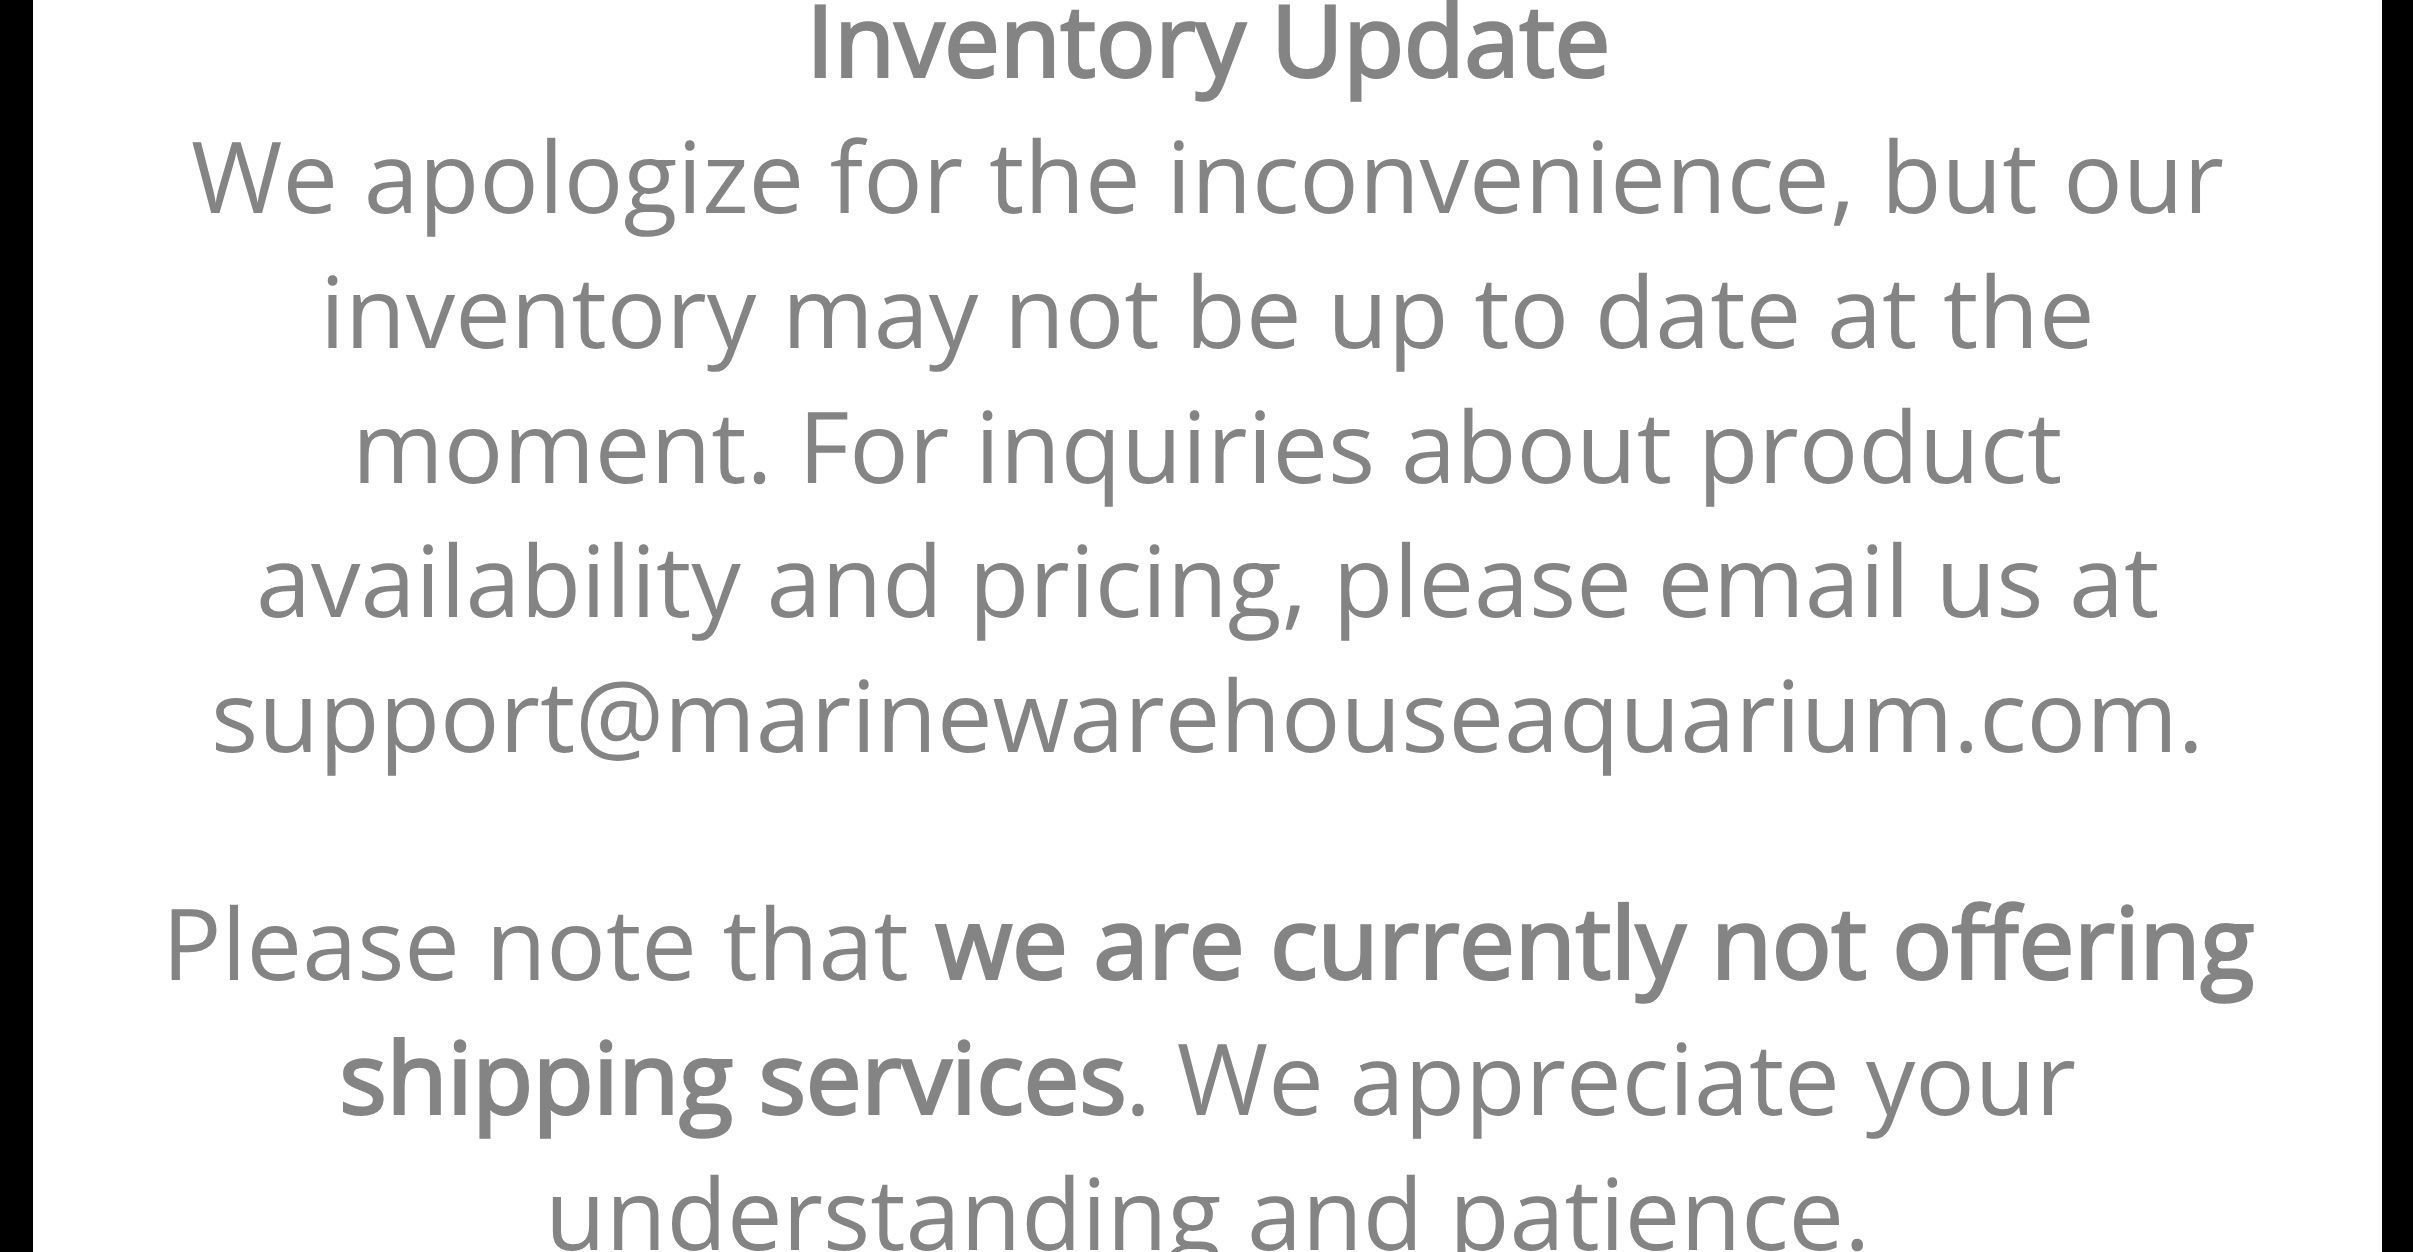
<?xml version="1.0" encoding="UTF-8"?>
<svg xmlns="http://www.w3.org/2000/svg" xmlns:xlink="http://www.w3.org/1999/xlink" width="2413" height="1252">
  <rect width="100%" height="100%" fill="#ffffff" />
  <rect x="16.5" y="-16.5" width="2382" height="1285" fill="none" stroke="#000000" stroke-width="33" />
  <text x="805" y="78" style="font-family: Open Sans; font-size: 99px; font-weight: bold; fill: #848484">Inventory Update</text>
  <text x="191" y="213" style="font-family: Open Sans; font-size: 99px; fill: #848484">We apologize for the inconvenience, but our</text>
  <text x="320" y="348" style="font-family: Open Sans; font-size: 99px; fill: #848484">inventory may not be up to date at the</text>
  <text x="352" y="483" style="font-family: Open Sans; font-size: 99px; fill: #848484">moment. For inquiries about product</text>
  <text x="256" y="617" style="font-family: Open Sans; font-size: 99px; fill: #848484">availability and pricing, please email us at</text>
  <text x="211" y="752" style="font-family: Open Sans; font-size: 99px; fill: #848484">support@marinewarehouseaquarium.com.</text>
  <text x="162" y="980" style="font-family: Open Sans; font-size: 99px; fill: #848484">Please note that</text>
  <text x="934" y="980" style="font-family: Open Sans; font-size: 99px; font-weight: bold; fill: #848484">we are currently not offering</text>
  <text x="338" y="1115" style="font-family: Open Sans; font-size: 99px; font-weight: bold; fill: #848484">shipping services</text>
  <text x="1125" y="1115" style="font-family: Open Sans; font-size: 99px; fill: #848484">. We appreciate your</text>
  <text x="545" y="1250" style="font-family: Open Sans; font-size: 99px; fill: #848484">understanding and patience.</text>
</svg>
